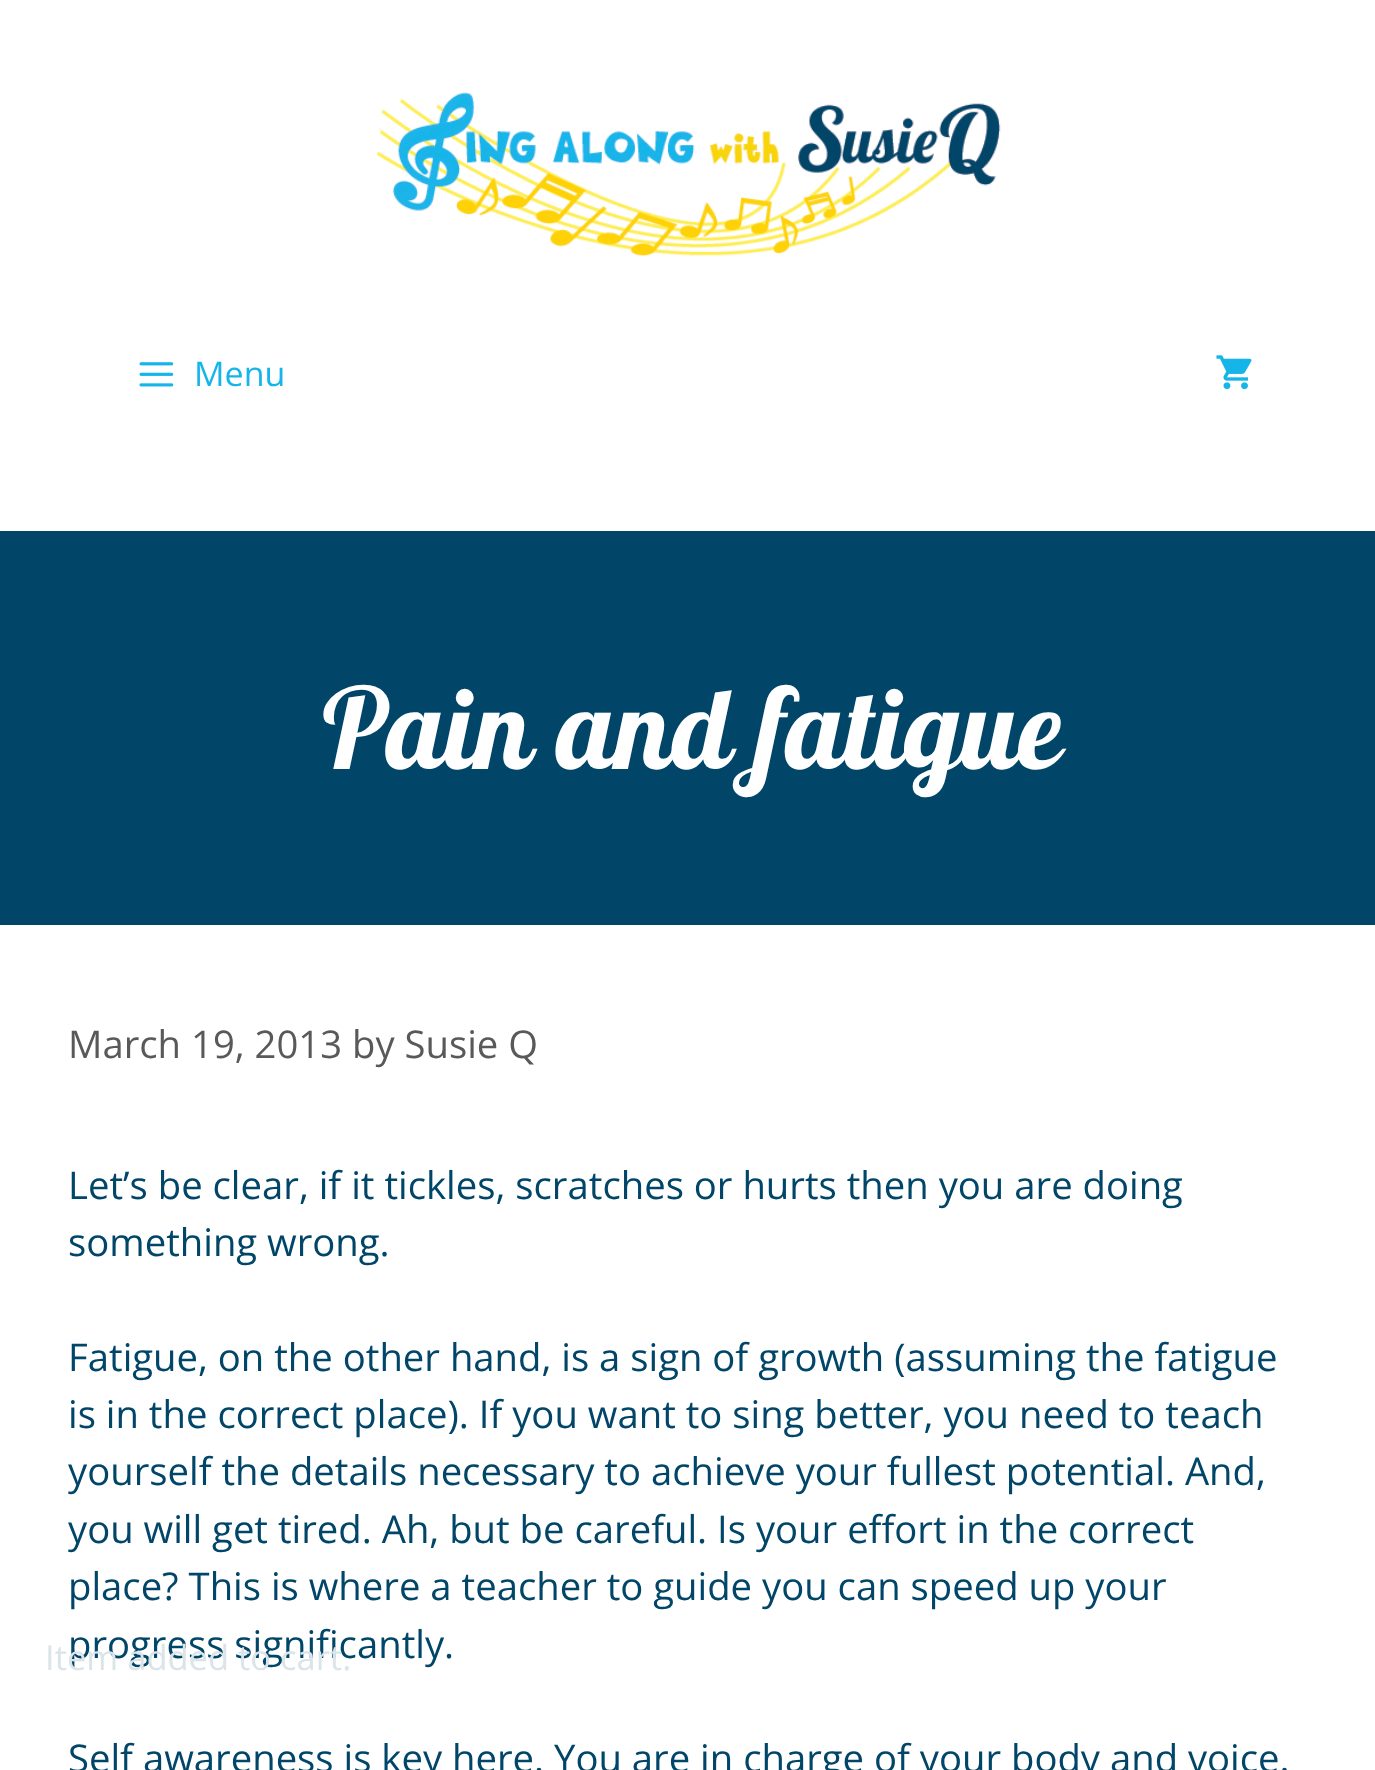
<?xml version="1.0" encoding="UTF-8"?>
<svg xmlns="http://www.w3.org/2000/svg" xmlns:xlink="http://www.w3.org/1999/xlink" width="1375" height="1770">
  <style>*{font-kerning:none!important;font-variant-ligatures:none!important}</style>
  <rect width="100%" height="100%" fill="#ffffff" />
  <image x="376" y="92" width="625" height="164" xlink:href="image1.png" />
  <image x="139" y="362" width="35" height="25" xlink:href="image2.png" />
  <image x="1216" y="355" width="36" height="35" xlink:href="image3.png" />
  <rect y="531" width="1375" height="394" fill="#014669" />
  <text x="194" y="386" style="font-family: Open Sans; font-size: 34px; fill: #15b5ea">Menu</text>
  <text x="317" y="769" style="font-family: Lobster Two; font-size: 112.5px; font-weight: bold; font-style: italic; fill: #ffffff">Pain and fatigue</text>
  <text x="68" y="1058" style="font-family: Open Sans; font-size: 38.25px; fill: #595959">March 19, 2013 by Susie Q</text>
  <text x="68" y="1199" style="font-family: Open Sans; font-size: 38.25px; fill: #014669">Let’s be clear, if it tickles, scratches or hurts then you are doing</text>
  <text x="68" y="1256" style="font-family: Open Sans; font-size: 38.25px; fill: #014669">something wrong.</text>
  <text x="68" y="1371" style="font-family: Open Sans; font-size: 38.25px; fill: #014669">Fatigue, on the other hand, is a sign of growth (assuming the fatigue</text>
  <text x="68" y="1428" style="font-family: Open Sans; font-size: 38.25px; fill: #014669">is in the correct place). If you want to sing better, you need to teach</text>
  <text x="68" y="1485" style="font-family: Open Sans; font-size: 38.25px; fill: #014669">yourself the details necessary to achieve your fullest potential. And,</text>
  <text x="68" y="1543" style="font-family: Open Sans; font-size: 38.25px; fill: #014669">you will get tired. Ah, but be careful. Is your effort in the correct</text>
  <text x="68" y="1600" style="font-family: Open Sans; font-size: 38.25px; fill: #014669">place? This is where a teacher to guide you can speed up your</text>
  <text x="68" y="1658" style="font-family: Open Sans; font-size: 38.25px; fill: #014669">progress significantly.</text>
  <text x="68" y="1772" style="font-family: Open Sans; font-size: 38.25px; fill: #014669">Self awareness is key here. You are in charge of your body and voice.</text>
  <text x="45" y="1670" style="font-family: Open Sans; font-size: 34.5px; fill: #dae4e9">Item added to cart.</text>
</svg>
